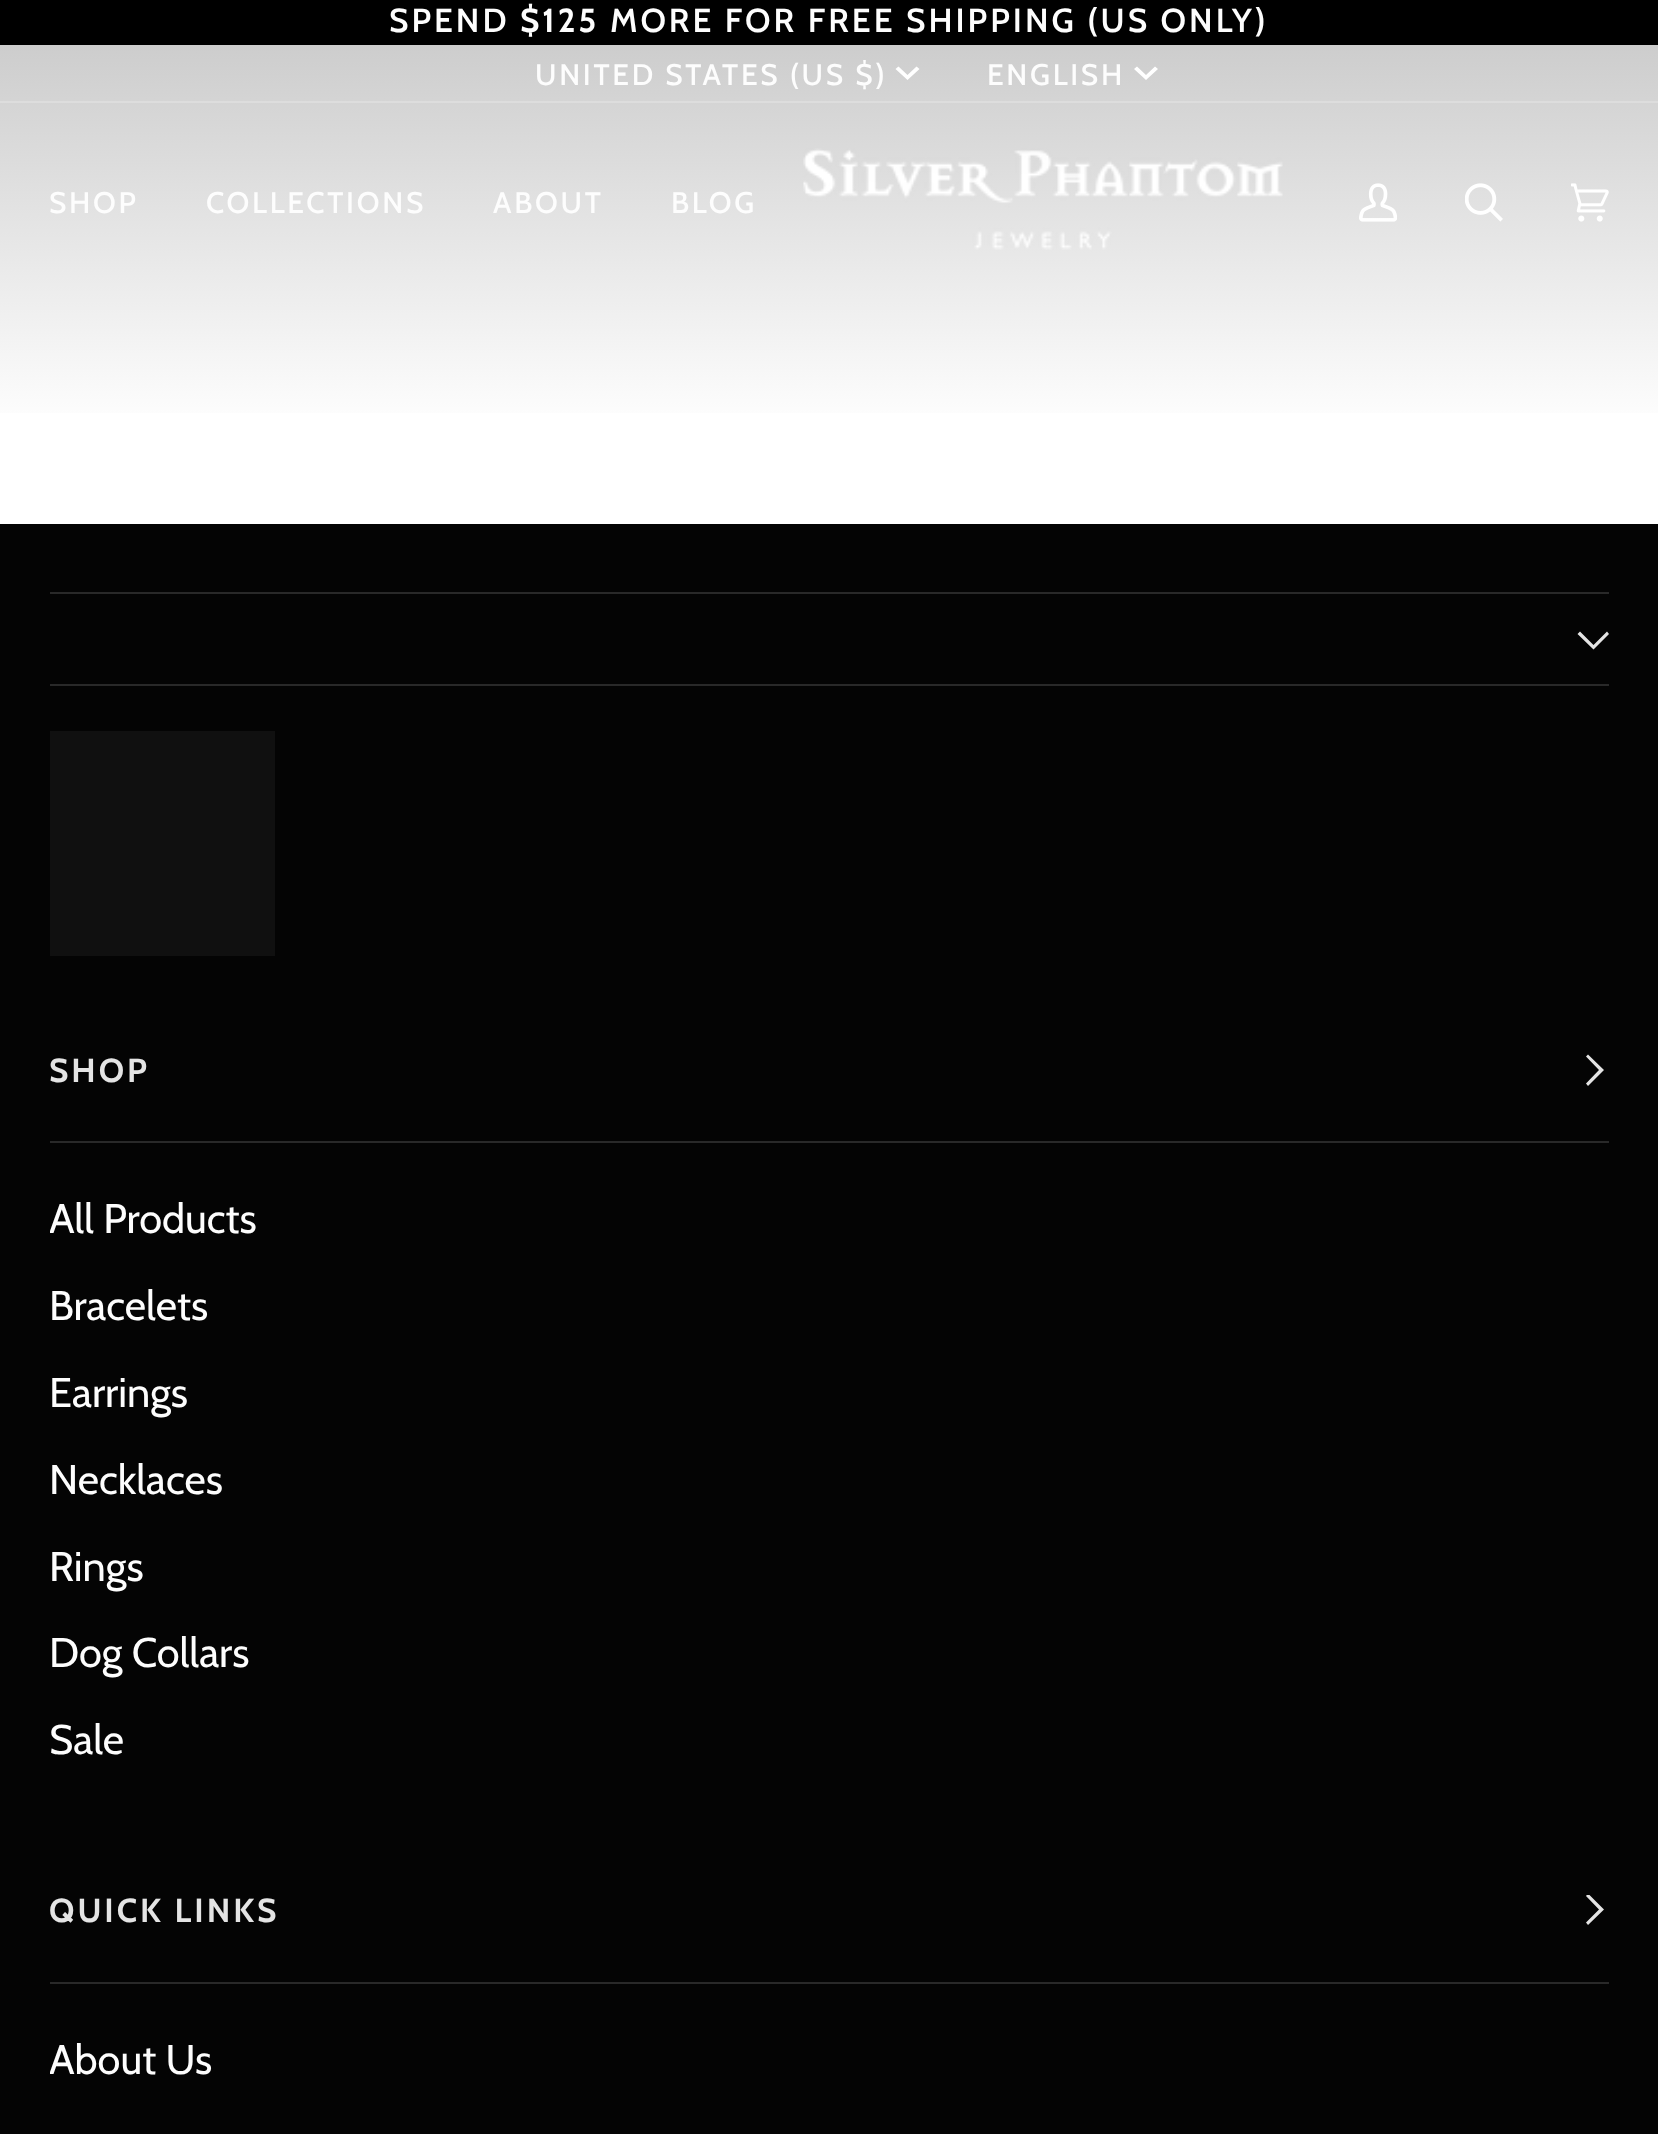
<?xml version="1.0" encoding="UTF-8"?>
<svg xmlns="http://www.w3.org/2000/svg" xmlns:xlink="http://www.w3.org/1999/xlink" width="1658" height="2134">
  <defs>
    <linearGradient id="g1" gradientUnits="userSpaceOnUse" x1="829" y1="45" x2="829" y2="432"><stop offset="0" stop-color="#cdcdcd" /><stop offset="1" stop-color="#ffffff" /></linearGradient>
    <clipPath id="clip1"><rect x="1577" y="1895" width="32" height="33" /></clipPath>
    <clipPath id="clip2"><rect x="50" y="1143" width="1559" height="698" /></clipPath>
    <clipPath id="clip3"><rect x="50" y="1985" width="1559" height="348" /></clipPath>
  </defs>
  <rect width="100%" height="100%" fill="#ffffff" />
  <rect width="1658" height="45" fill="#000000" />
  <rect y="45" width="1658" height="368" fill="url(#g1)" />
  <path d="M 895.5 69 l 3 -2.5 l 9 8.5 l 9 -8.5 l 3 2.5 l -12 11 z" fill="#ffffff" fill-rule="evenodd" />
  <path d="M 1134 69 l 3 -2.5 l 9 8.5 l 9 -8.5 l 3 2.5 l -12 11 z" fill="#ffffff" fill-rule="evenodd" />
  <rect y="101" width="1658" height="2" fill="#dddddd" />
  <image x="803" y="148" width="480" height="102" xlink:href="image1.png" />
  <image x="1359" y="183" width="38" height="39" xlink:href="image2.png" />
  <image x="1465" y="183" width="38" height="39" xlink:href="image3.png" />
  <image x="1571" y="183" width="38" height="39" xlink:href="image4.png" />
  <rect y="524" width="1658" height="1610" fill="#040404" />
  <rect x="50" y="592" width="1559" height="2" fill="#292929" />
  <rect x="50" y="684" width="1559" height="2" fill="#292929" />
  <path d="M 1593.5 645 l 13.5 -13.5 l 2 2.5 l -15.5 15.5 l -16 -15.5 l 2.5 -2.5 z" fill="#e4e4e4" fill-rule="evenodd" />
  <rect x="50" y="731" width="225" height="225" fill="#101010" />
  <rect x="50" y="1141" width="1559" height="2" fill="#292929" />
  <path d="M 1599 1070 l -13 -13.5 l 2 -2 l 16 15.5 l -16 16 l -2 -2.5 z" fill="#e4e4e4" fill-rule="evenodd" />
  <rect x="50" y="1982" width="1559" height="2" fill="#292929" />
  <g clip-path="url(#clip1)">
    <path d="M 1599 1909.5 l -13 -13.5 l 2 -2.5 l 16 16 l -16 15.5 l -2 -2.5 z" fill="#e4e4e4" fill-rule="evenodd" />
  </g>
  <text x="389" y="32" style="font-family: Cabin; font-size: 33.4px; font-weight: 600; letter-spacing: 3px; fill: #fdfdfd">SPEND</text>
  <text x="520" y="32" style="font-family: Cabin; font-size: 33.4px; font-weight: bold; letter-spacing: 3px; fill: #fdfdfd">$125</text>
  <text x="610" y="32" style="font-family: Cabin; font-size: 33.4px; font-weight: 600; letter-spacing: 3px; fill: #fdfdfd">MORE FOR FREE SHIPPING (US ONLY)</text>
  <text x="535" y="85" style="font-family: Cabin; font-size: 29.75px; font-weight: 500; letter-spacing: 2.7px; fill: #fdfdfd">UNITED STATES (US $)</text>
  <text x="987" y="85" style="font-family: Cabin; font-size: 29.75px; font-weight: 500; letter-spacing: 2.7px; fill: #fdfdfd">ENGLISH</text>
  <text x="49" y="213" style="font-family: Cabin; font-size: 29.75px; font-weight: 500; letter-spacing: 2.7px; fill: #fdfdfd">SHOP</text>
  <text x="206" y="213" style="font-family: Cabin; font-size: 29.75px; font-weight: 500; letter-spacing: 2.7px; fill: #fdfdfd">COLLECTIONS</text>
  <text x="493" y="213" style="font-family: Cabin; font-size: 29.75px; font-weight: 500; letter-spacing: 2.7px; fill: #fdfdfd">ABOUT</text>
  <text x="671" y="213" style="font-family: Cabin; font-size: 29.75px; font-weight: 500; letter-spacing: 2.7px; fill: #fdfdfd">BLOG</text>
  <text x="49" y="1082" style="font-family: Cabin; font-size: 33.4px; font-weight: bold; letter-spacing: 3px; fill: #e4e4e4">SHOP</text>
  <g clip-path="url(#clip2)">
    <text x="49" y="1233" style="font-family: Cabin; font-size: 41.5px; fill: #fdfdfd">All Products</text>
  </g>
  <text x="49" y="1320" style="font-family: Cabin; font-size: 41.5px; fill: #fdfdfd">Bracelets</text>
  <text x="49" y="1407" style="font-family: Cabin; font-size: 41.5px; fill: #fdfdfd">Earrings</text>
  <text x="49" y="1494" style="font-family: Cabin; font-size: 41.5px; fill: #fdfdfd">Necklaces</text>
  <text x="49" y="1581" style="font-family: Cabin; font-size: 41.5px; fill: #fdfdfd">Rings</text>
  <text x="49" y="1667" style="font-family: Cabin; font-size: 41.5px; fill: #fdfdfd">Dog Collars</text>
  <text x="49" y="1754" style="font-family: Cabin; font-size: 41.5px; fill: #fdfdfd">Sale</text>
  <text x="49" y="1922" style="font-family: Cabin; font-size: 33.4px; font-weight: bold; letter-spacing: 3px; fill: #e4e4e4">QUICK LINKS</text>
  <g clip-path="url(#clip3)">
    <text x="49" y="2074" style="font-family: Cabin; font-size: 41.5px; fill: #fdfdfd">About Us</text>
  </g>
</svg>
